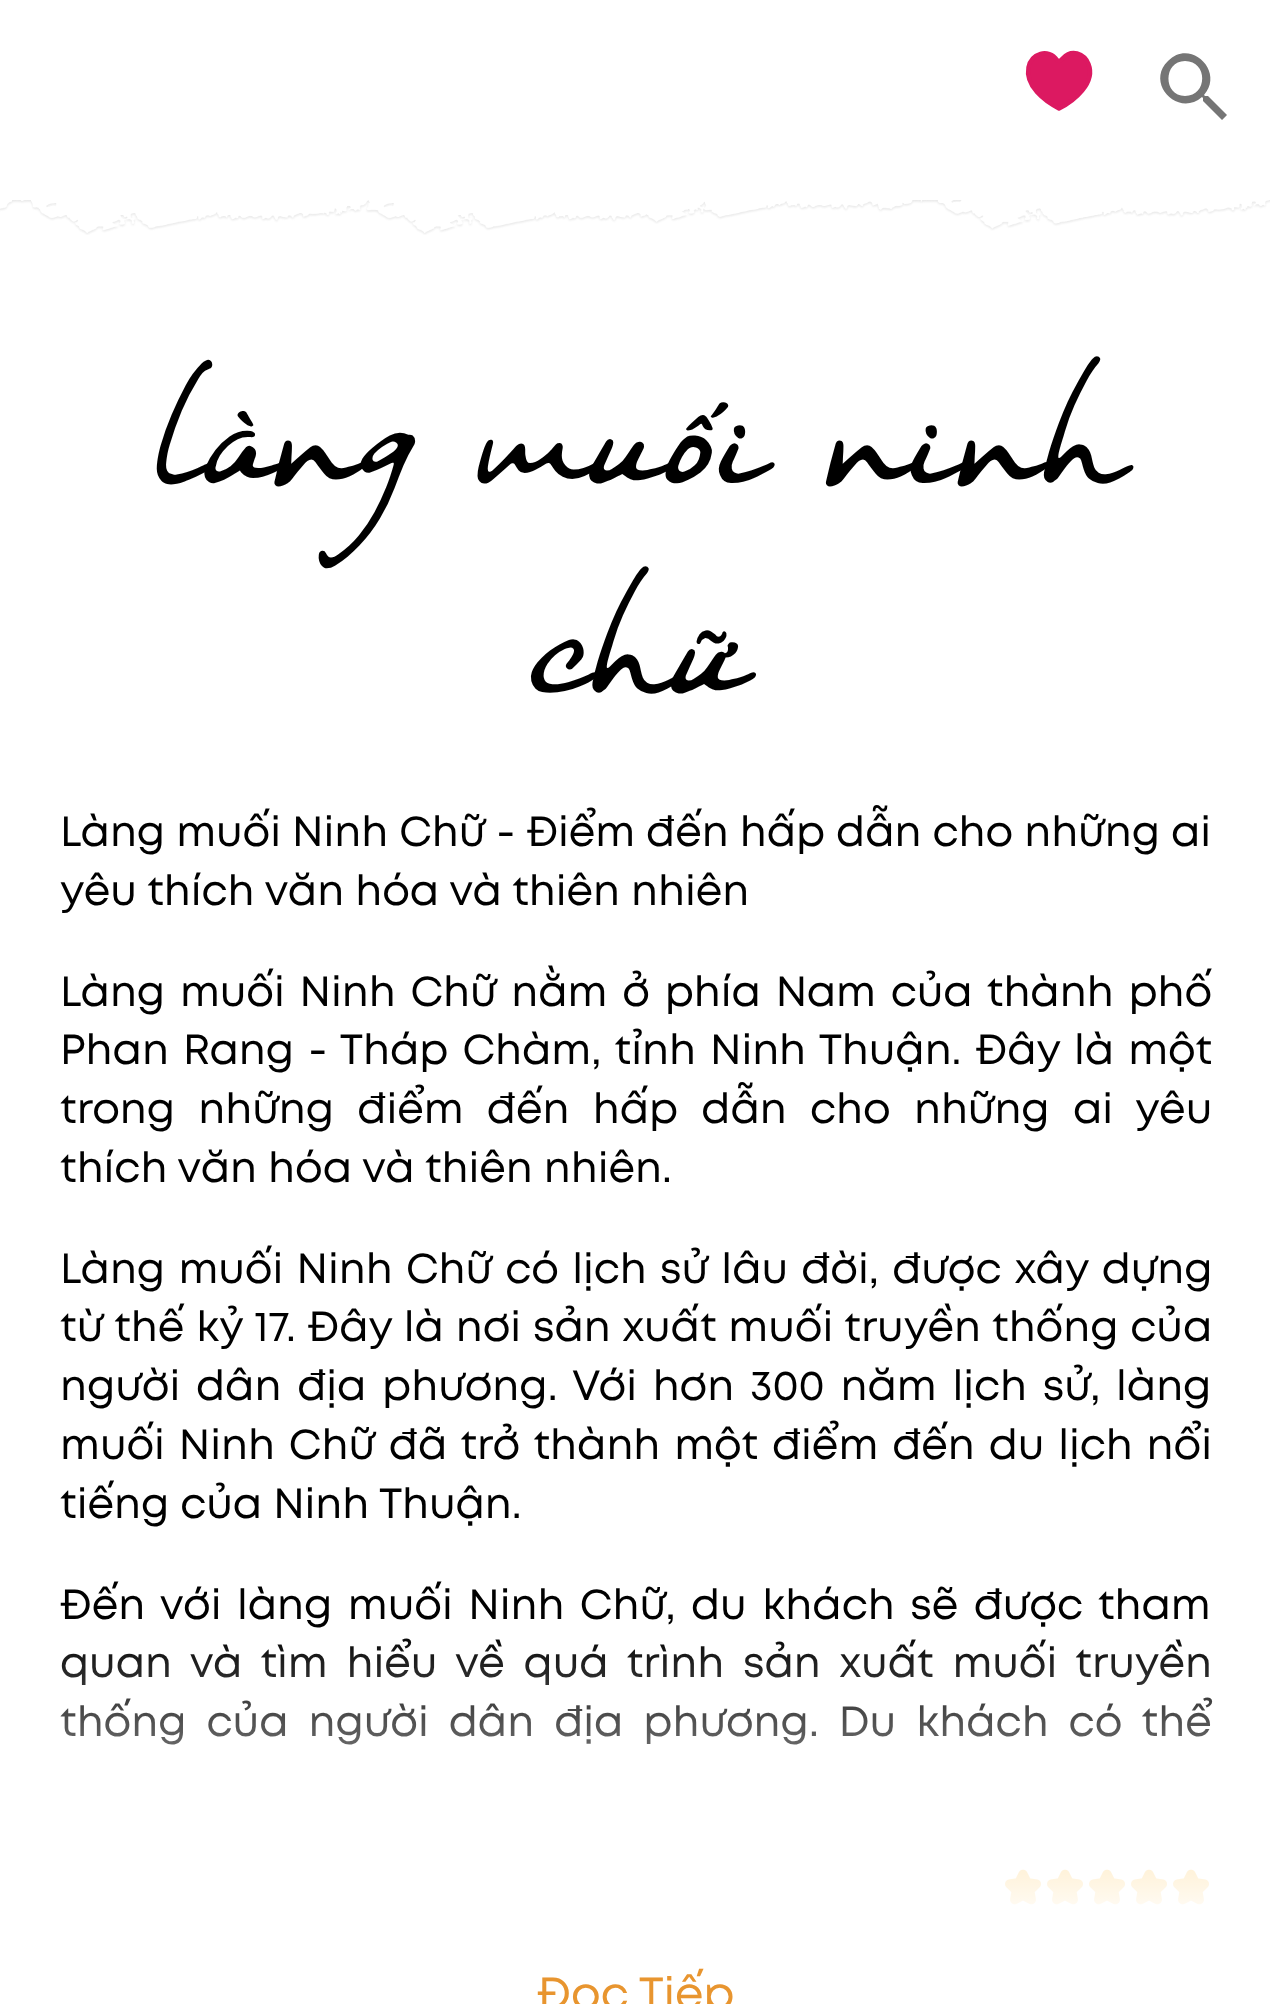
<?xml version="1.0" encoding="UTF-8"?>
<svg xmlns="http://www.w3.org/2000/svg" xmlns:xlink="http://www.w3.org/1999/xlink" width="1270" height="2004">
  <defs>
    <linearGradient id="g1" gradientUnits="userSpaceOnUse" x1="636" y1="1626" x2="636" y2="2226"><stop offset="0" stop-color="#ffffff" stop-opacity="0" /><stop offset="0.5" stop-color="#ffffff" /><stop offset="1" stop-color="#ffffff" /></linearGradient>
  </defs>
  <rect width="100%" height="100%" fill="#ffffff" />
  <path d="M 1057 60 l 2 1 c 3 0 6 -10 18 -7 c 5 1 10 5 11 10 c 8 19 -14 37 -29 45 c -15 -8 -34 -23 -30 -42 c 2 -14 20 -19 28 -7 z" fill="#dc1961" />
  <path d="M 1057 60 l 1.5 1 c 3.5 0.5 7 -10 18.5 -7.5 c 5 1.5 9.5 5.5 11.5 10.5 c 7.5 19 -14.5 37 -29.5 44.5 c -14.5 -7.5 -34 -22.5 -30.5 -41 c 2.5 -14.5 20 -19.5 28.5 -7.5 z" fill="none" stroke="#dc1961" stroke-width="4.5" stroke-linecap="round" stroke-linejoin="round" />
  <path d="M 1208 96 h -3 l -1 -1 c 21 -24 -14 -57 -36 -34 c -23 22 10 57 34 36 l 1 1 v 3 l 19 19 l 5 -5 z m -23 0 c -22 0 -22 -35 0 -35 c 23 0 23 35 0 35 z" fill="#757575" />
  <image x="0" y="200" width="1270" height="35" xlink:href="image1.png" />
  <image x="1005" y="1869" width="36" height="36" xlink:href="image2.png" />
  <image x="1047" y="1869" width="36" height="36" xlink:href="image2.png" />
  <image x="1089" y="1869" width="36" height="36" xlink:href="image2.png" />
  <image x="1131" y="1869" width="36" height="36" xlink:href="image2.png" />
  <image x="1173" y="1869" width="36" height="36" xlink:href="image2.png" />
  <text x="150" y="483" style="font-family: '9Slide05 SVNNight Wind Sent'; font-size: 150px; fill: #000000">làng muối ninh</text>
  <text x="527" y="693" style="font-family: '9Slide05 SVNNight Wind Sent'; font-size: 150px; fill: #000000">chữ</text>
  <text x="60" y="846" style="font-family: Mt; font-size: 42px; fill: #000000">Làng muối Ninh Chữ - Điểm đến hấp dẫn cho những ai</text>
  <text x="60" y="905" style="font-family: Mt; font-size: 42px; fill: #000000">yêu thích văn hóa và thiên nhiên</text>
  <text x="60" y="1006" word-spacing="3.75" style="font-family: Mt; font-size: 42px; fill: #000000">Làng muối Ninh Chữ nằm ở phía Nam của thành phố</text>
  <text x="60" y="1064" word-spacing="3" style="font-family: Mt; font-size: 42px; fill: #000000">Phan Rang - Tháp Chàm, tỉnh Ninh Thuận. Đây là một</text>
  <text x="60" y="1123" word-spacing="12.25" style="font-family: Mt; font-size: 42px; fill: #000000">trong những điểm đến hấp dẫn cho những ai yêu</text>
  <text x="60" y="1182" style="font-family: Mt; font-size: 42px; fill: #000000">thích văn hóa và thiên nhiên.</text>
  <text x="60" y="1283" word-spacing="2.25" style="font-family: Mt; font-size: 42px; fill: #000000">Làng muối Ninh Chữ có lịch sử lâu đời, được xây dựng</text>
  <text x="60" y="1341" word-spacing="0.75" style="font-family: Mt; font-size: 42px; fill: #000000">từ thế kỷ 17. Đây là nơi sản xuất muối truyền thống của</text>
  <text x="60" y="1400" word-spacing="4.75" style="font-family: Mt; font-size: 42px; fill: #000000">người dân địa phương. Với hơn 300 năm lịch sử, làng</text>
  <text x="60" y="1459" word-spacing="2.9" style="font-family: Mt; font-size: 42px; fill: #000000">muối Ninh Chữ đã trở thành một điểm đến du lịch nổi</text>
  <text x="60" y="1518" style="font-family: Mt; font-size: 42px; fill: #000000">tiếng của Ninh Thuận.</text>
  <text x="60" y="1619" word-spacing="4.5" style="font-family: Mt; font-size: 42px; fill: #000000">Đến với làng muối Ninh Chữ, du khách sẽ được tham</text>
  <text x="60" y="1677" word-spacing="7.75" style="font-family: Mt; font-size: 42px; fill: #000000">quan và tìm hiểu về quá trình sản xuất muối truyền</text>
  <text x="60" y="1736" word-spacing="9" style="font-family: Mt; font-size: 42px; fill: #000000">thống của người dân địa phương. Du khách có thể</text>
  <rect x="60" y="1638" width="1153" height="267" fill="url(#g1)" />
  <text x="537" y="2009" style="font-family: Mt; font-size: 45px; fill: #e8952f">Đọc Tiếp</text>
</svg>
